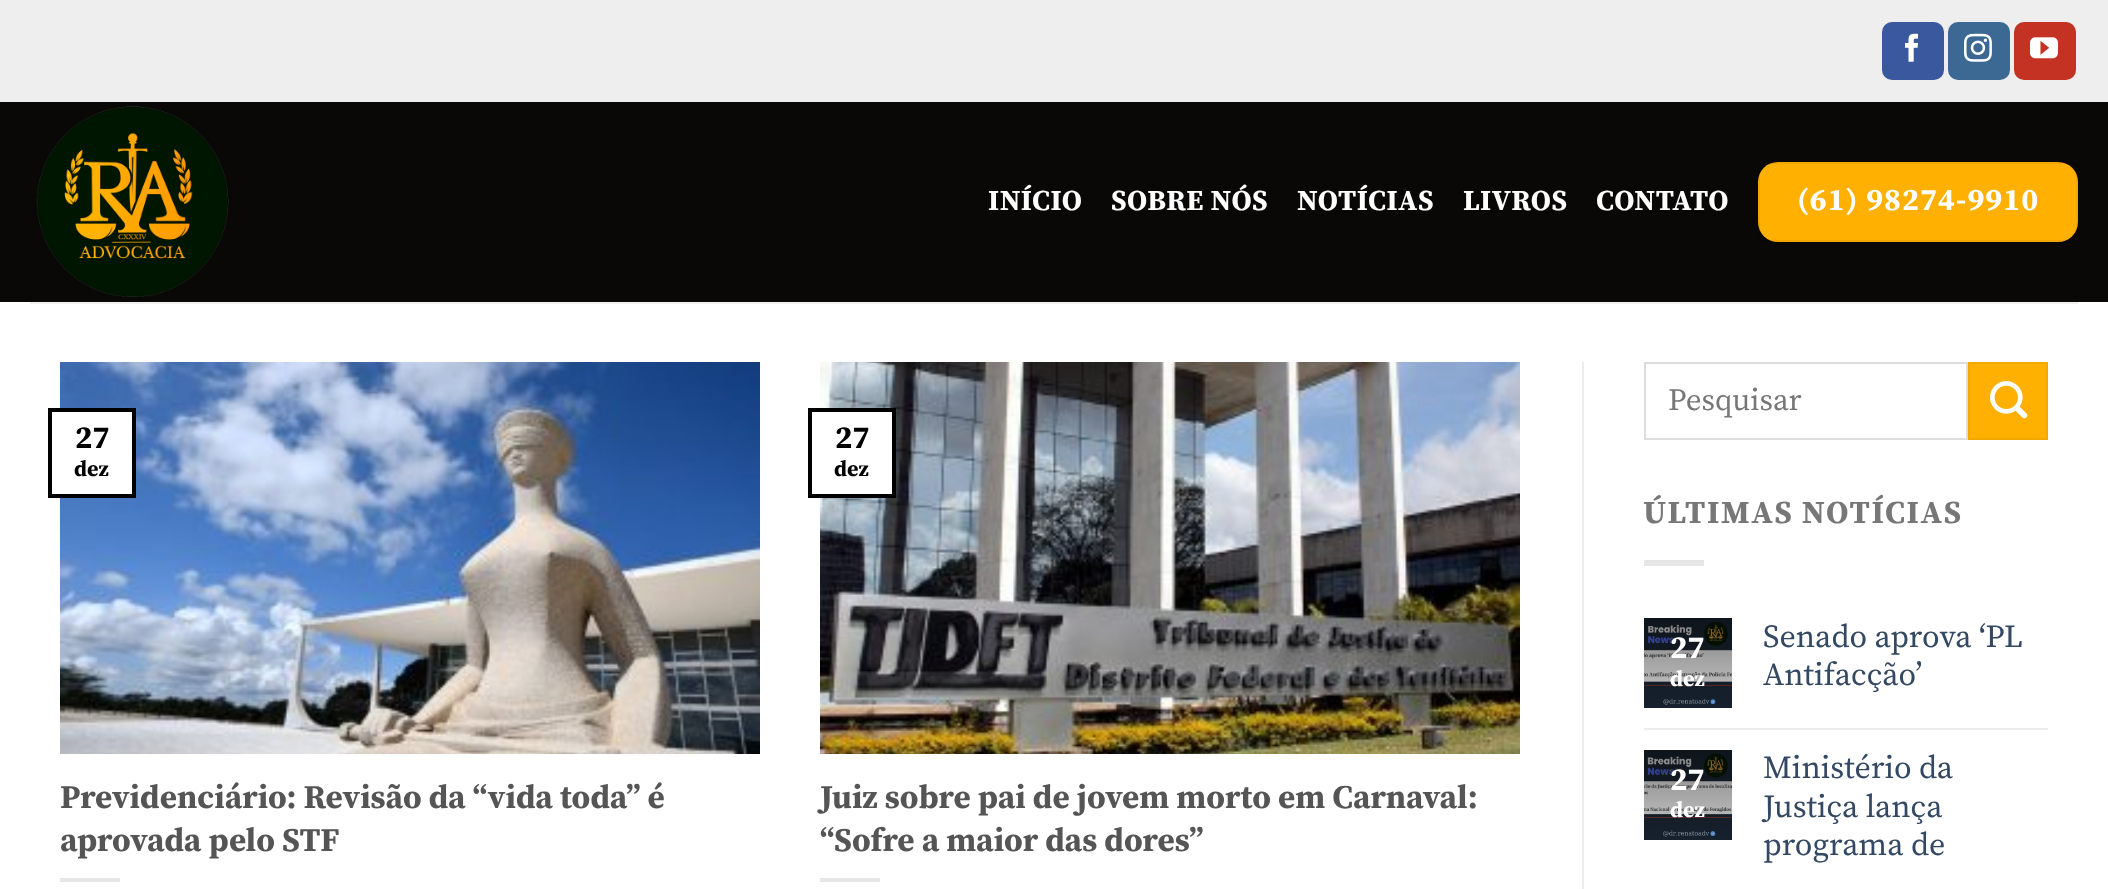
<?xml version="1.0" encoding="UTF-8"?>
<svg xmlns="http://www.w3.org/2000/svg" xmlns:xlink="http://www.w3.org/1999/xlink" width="2108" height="889">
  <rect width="100%" height="100%" fill="#ffffff" />
  <rect y="102" width="2108" height="200" fill="#0a0707" />
  <rect width="2108" height="102" fill="#eeeeee" />
  <rect x="1883" y="23" width="60" height="56" rx="9" fill="#3a589d" stroke="#3a589d" stroke-width="2" />
  <image x="1905" y="33" width="14" height="29" xlink:href="image1.png" />
  <rect x="1949" y="23" width="60" height="56" rx="9" fill="#3b6994" stroke="#3b6994" stroke-width="2" />
  <image x="1964" y="33" width="28" height="29" xlink:href="image2.png" />
  <rect x="2015" y="23" width="60" height="56" rx="9" fill="#c33223" stroke="#c33223" stroke-width="2" />
  <image x="2030" y="37" width="28" height="22" xlink:href="image3.png" />
  <image x="36" y="106" width="193" height="191" xlink:href="image4.png" />
  <rect x="1758" y="162" width="320" height="80" rx="20" fill="#ffb001" />
  <rect x="1759" y="163" width="318" height="78" fill="none" stroke="#000000" stroke-opacity="0.05" stroke-width="2" />
  <rect x="30" y="302" width="2048" height="2" fill="#f1f1f1" />
  <image x="60" y="362" width="700" height="392" xlink:href="image5.png" />
  <rect x="60" y="412" width="72" height="82" fill="#ffffff" />
  <rect x="50" y="410" width="84" height="86" fill="none" stroke="#000000" stroke-width="4" />
  <rect x="60" y="878" width="60" height="4" fill="#e6e6e6" />
  <image x="820" y="362" width="700" height="392" xlink:href="image6.png" />
  <rect x="820" y="412" width="72" height="82" fill="#ffffff" />
  <rect x="810" y="410" width="84" height="86" fill="none" stroke="#000000" stroke-width="4" />
  <rect x="820" y="878" width="60" height="4" fill="#e6e6e6" />
  <rect x="1582" y="362" width="2" height="527" fill="#ececec" />
  <rect x="1645" y="363" width="322" height="76" fill="none" stroke="#dddddd" stroke-width="2" />
  <rect x="1969" y="363" width="78" height="76" fill="#ffb001" stroke="#f2a701" stroke-width="2" />
  <image x="1990" y="381" width="38" height="38" xlink:href="image7.png" />
  <rect x="1644" y="560" width="60" height="6" fill="#e6e6e6" />
  <image x="1644" y="618" width="88" height="90" xlink:href="image8.png" />
  <rect x="1644" y="728" width="404" height="2" fill="#ececec" />
  <image x="1644" y="750" width="88" height="90" xlink:href="image9.png" />
  <text x="988" y="210" style="font-family: Source Serif Pro; font-size: 28.75px; font-weight: bold; letter-spacing: 0.5px; fill: #ffffff">INÍCIO</text>
  <text x="1111" y="210" style="font-family: Source Serif Pro; font-size: 28.75px; font-weight: bold; letter-spacing: 0.5px; fill: #ffffff">SOBRE NÓS</text>
  <text x="1297" y="210" style="font-family: Source Serif Pro; font-size: 28.75px; font-weight: bold; letter-spacing: 0.5px; fill: #ffffff">NOTÍCIAS</text>
  <text x="1463" y="210" style="font-family: Source Serif Pro; font-size: 28.75px; font-weight: bold; letter-spacing: 0.5px; fill: #ffffff">LIVROS</text>
  <text x="1596" y="210" style="font-family: Source Serif Pro; font-size: 28.75px; font-weight: bold; letter-spacing: 0.5px; fill: #ffffff">CONTATO</text>
  <text x="1797" y="210" style="font-family: Source Serif Pro; font-size: 31.25px; font-weight: bold; letter-spacing: 1px; fill: #ffffff">(61) 98274-9910</text>
  <text x="75" y="448" style="font-family: Source Serif Pro; font-size: 32px; font-weight: bold; fill: #000000">27</text>
  <text x="74" y="476" style="font-family: Source Serif Pro; font-size: 22px; font-weight: bold; fill: #000000">dez</text>
  <text x="60" y="808" style="font-family: Source Serif Pro; font-size: 33.1px; font-weight: bold; fill: #555555">Previdenciário: Revisão da “vida toda” é</text>
  <text x="60" y="851" style="font-family: Source Serif Pro; font-size: 33.1px; font-weight: bold; fill: #555555">aprovada pelo STF</text>
  <text x="835" y="448" style="font-family: Source Serif Pro; font-size: 32px; font-weight: bold; fill: #000000">27</text>
  <text x="834" y="476" style="font-family: Source Serif Pro; font-size: 22px; font-weight: bold; fill: #000000">dez</text>
  <text x="820" y="808" style="font-family: Source Serif Pro; font-size: 33.1px; font-weight: bold; fill: #555555">Juiz sobre pai de jovem morto em Carnaval:</text>
  <text x="820" y="851" style="font-family: Source Serif Pro; font-size: 33.1px; font-weight: bold; fill: #555555">“Sofre a maior das dores”</text>
  <text x="1668" y="410" style="font-family: Source Serif Pro; font-size: 31px; fill: #777777">Pesquisar</text>
  <text x="1643" y="523" style="font-family: Source Serif Pro; font-size: 32px; font-weight: bold; letter-spacing: 1.6px; fill: #777777">ÚLTIMAS NOTÍCIAS</text>
  <text x="1670" y="658" style="font-family: Source Serif Pro; font-size: 32px; font-weight: bold; fill: #ffffff">27</text>
  <text x="1670" y="686" style="font-family: Source Serif Pro; font-size: 22px; font-weight: bold; fill: #ffffff">dez</text>
  <text x="1763" y="647" style="font-family: Source Serif Pro; font-size: 32px; fill: #334862">Senado aprova ‘PL</text>
  <text x="1763" y="685" style="font-family: Source Serif Pro; font-size: 32px; fill: #334862">Antifacção’</text>
  <text x="1670" y="790" style="font-family: Source Serif Pro; font-size: 32px; font-weight: bold; fill: #ffffff">27</text>
  <text x="1670" y="817" style="font-family: Source Serif Pro; font-size: 22px; font-weight: bold; fill: #ffffff">dez</text>
  <text x="1763" y="778" style="font-family: Source Serif Pro; font-size: 32px; fill: #334862">Ministério da</text>
  <text x="1763" y="817" style="font-family: Source Serif Pro; font-size: 32px; fill: #334862">Justiça lança</text>
  <text x="1763" y="855" style="font-family: Source Serif Pro; font-size: 32px; fill: #334862">programa de</text>
</svg>
